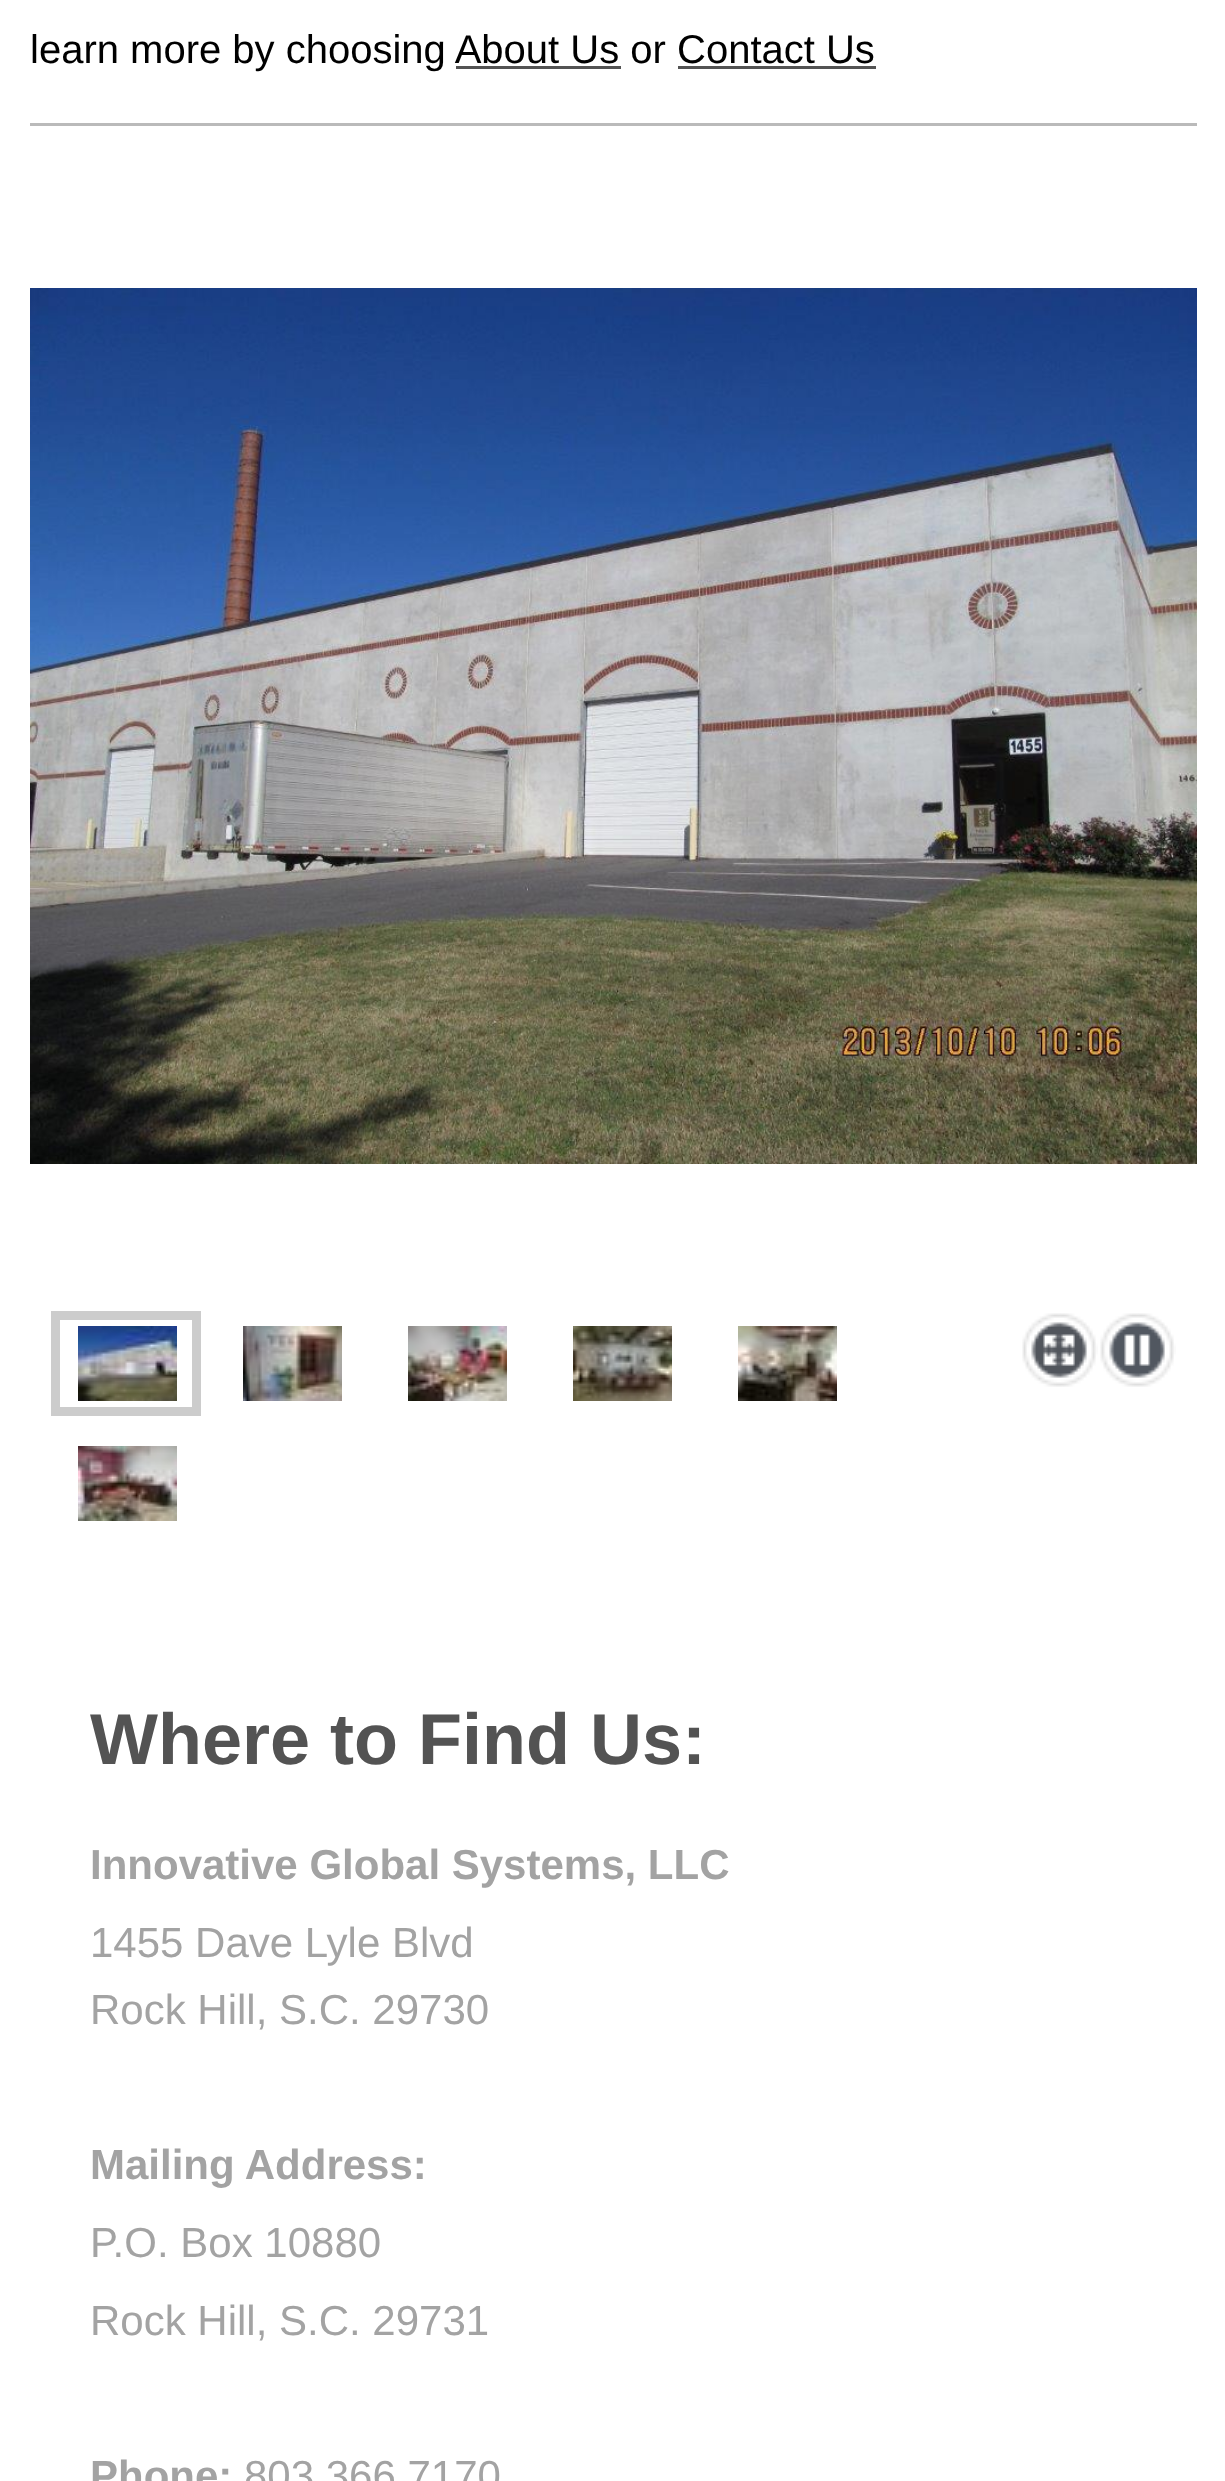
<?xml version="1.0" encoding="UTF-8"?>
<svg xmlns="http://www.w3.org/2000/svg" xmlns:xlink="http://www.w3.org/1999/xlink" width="1225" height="2481">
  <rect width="100%" height="100%" fill="#ffffff" />
  <rect x="30" y="123" width="1167" height="3" fill="#bababa" />
  <image x="30" y="288" width="1167" height="876" xlink:href="image1.png" />
  <rect x="55.5" y="1315.5" width="141" height="96" fill="none" stroke="#cccccc" stroke-width="9" />
  <image x="78" y="1326" width="99" height="75" xlink:href="image2.png" />
  <image x="243" y="1326" width="99" height="75" xlink:href="image3.png" />
  <image x="408" y="1326" width="99" height="75" xlink:href="image4.png" />
  <image x="573" y="1326" width="99" height="75" xlink:href="image5.png" />
  <image x="738" y="1326" width="99" height="75" xlink:href="image6.png" />
  <image x="1022" y="1313" width="76" height="74" xlink:href="image7.png" />
  <image x="1100" y="1313" width="76" height="74" xlink:href="image8.png" />
  <image x="78" y="1446" width="99" height="75" xlink:href="image9.png" />
  <text x="30" y="63" style="font-family: Liberation Sans; font-size: 40px; fill: #000000">learn more by choosing About Us or Contact Us</text>
  <rect x="456" y="66" width="165" height="3" fill="#535353" />
  <rect x="678" y="66" width="198" height="3" fill="#535353" />
  <text x="90" y="1764" style="font-family: Liberation Sans; font-size: 72px; font-weight: bold; fill: #535353">Where to Find Us:</text>
  <text x="90" y="1879" style="font-family: Liberation Sans; font-size: 42px; font-weight: bold; fill: #a3a3a3">Innovative Global Systems, LLC</text>
  <text x="90" y="1957" style="font-family: Liberation Sans; font-size: 42px; fill: #a3a3a3">1455 Dave Lyle Blvd</text>
  <text x="90" y="2024" style="font-family: Liberation Sans; font-size: 42px; fill: #a3a3a3">Rock Hill, S.C. 29730</text>
  <text x="90" y="2179" style="font-family: Liberation Sans; font-size: 42px; font-weight: bold; fill: #a3a3a3">Mailing Address:</text>
  <text x="90" y="2257" style="font-family: Liberation Sans; font-size: 42px; fill: #a3a3a3">P.O. Box 10880</text>
  <text x="90" y="2335" style="font-family: Liberation Sans; font-size: 42px; fill: #a3a3a3">Rock Hill, S.C. 29731</text>
  <text x="90" y="2490" style="font-family: Liberation Sans; font-size: 42px; font-weight: bold; fill: #a3a3a3">Phone:</text>
  <text x="244" y="2490" style="font-family: Liberation Sans; font-size: 42px; fill: #a3a3a3">803.366.7170</text>
</svg>
